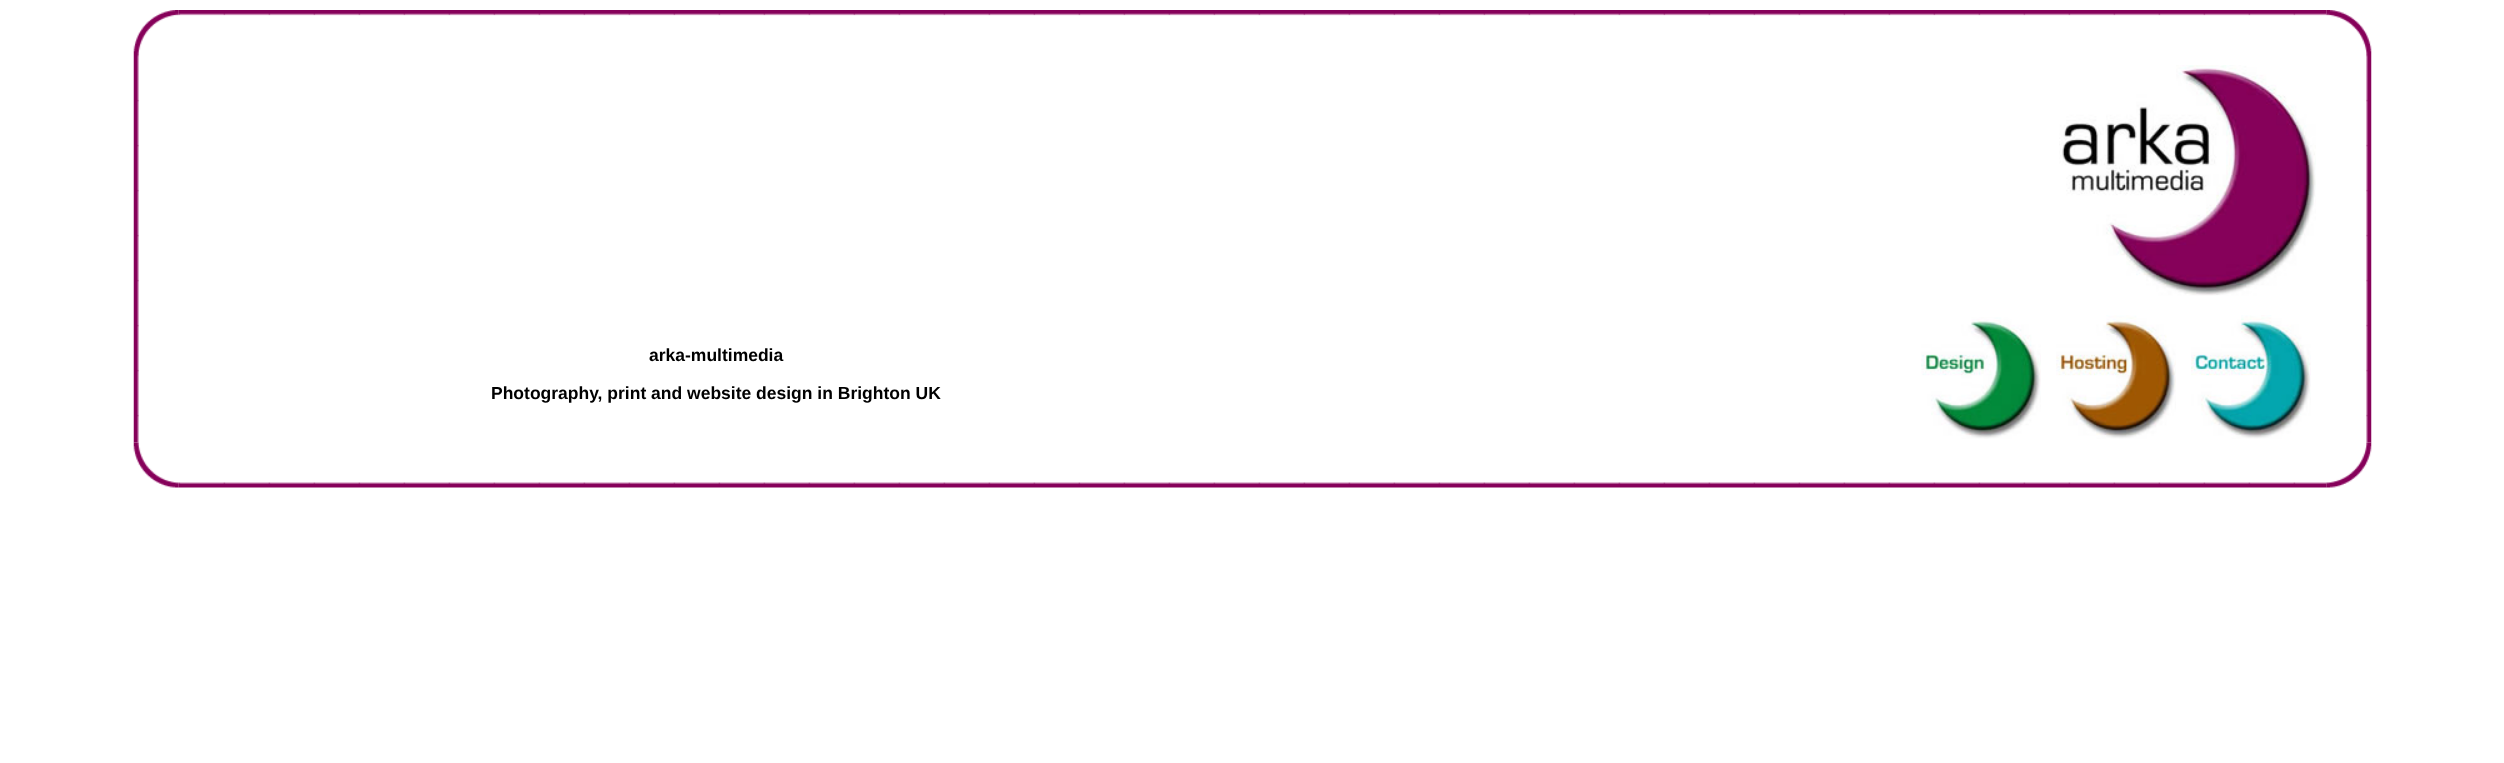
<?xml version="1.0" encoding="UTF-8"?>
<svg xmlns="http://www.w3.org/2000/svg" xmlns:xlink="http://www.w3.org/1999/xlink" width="2504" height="763">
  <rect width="100%" height="100%" fill="#ffffff" />
  <image x="178" y="10" width="2149" height="6" xlink:href="image2.png" />
  <image x="133" y="10" width="46" height="45" xlink:href="image1.png" />
  <image x="2326" y="10" width="46" height="45" xlink:href="image3.png" />
  <image x="133" y="55" width="6" height="388" xlink:href="image4.png" />
  <image x="2059" y="65" width="257" height="231" xlink:href="image5.png" />
  <image x="1921" y="317" width="120" height="122" xlink:href="image6.png" />
  <image x="2056" y="315" width="120" height="124" xlink:href="image7.png" />
  <image x="2191" y="315" width="120" height="124" xlink:href="image8.png" />
  <image x="2366" y="55" width="6" height="388" xlink:href="image9.png" />
  <image x="178" y="482" width="2149" height="6" xlink:href="image11.png" />
  <image x="133" y="442" width="46" height="46" xlink:href="image10.png" />
  <image x="2326" y="442" width="46" height="46" xlink:href="image12.png" />
  <text x="649" y="361" style="font-family: Liberation Sans; font-size: 17.5px; font-weight: bold; fill: #000000">arka-multimedia</text>
  <text x="491" y="399" style="font-family: Liberation Sans; font-size: 17.5px; font-weight: bold; fill: #000000">Photography, print and website design in Brighton UK</text>
</svg>
